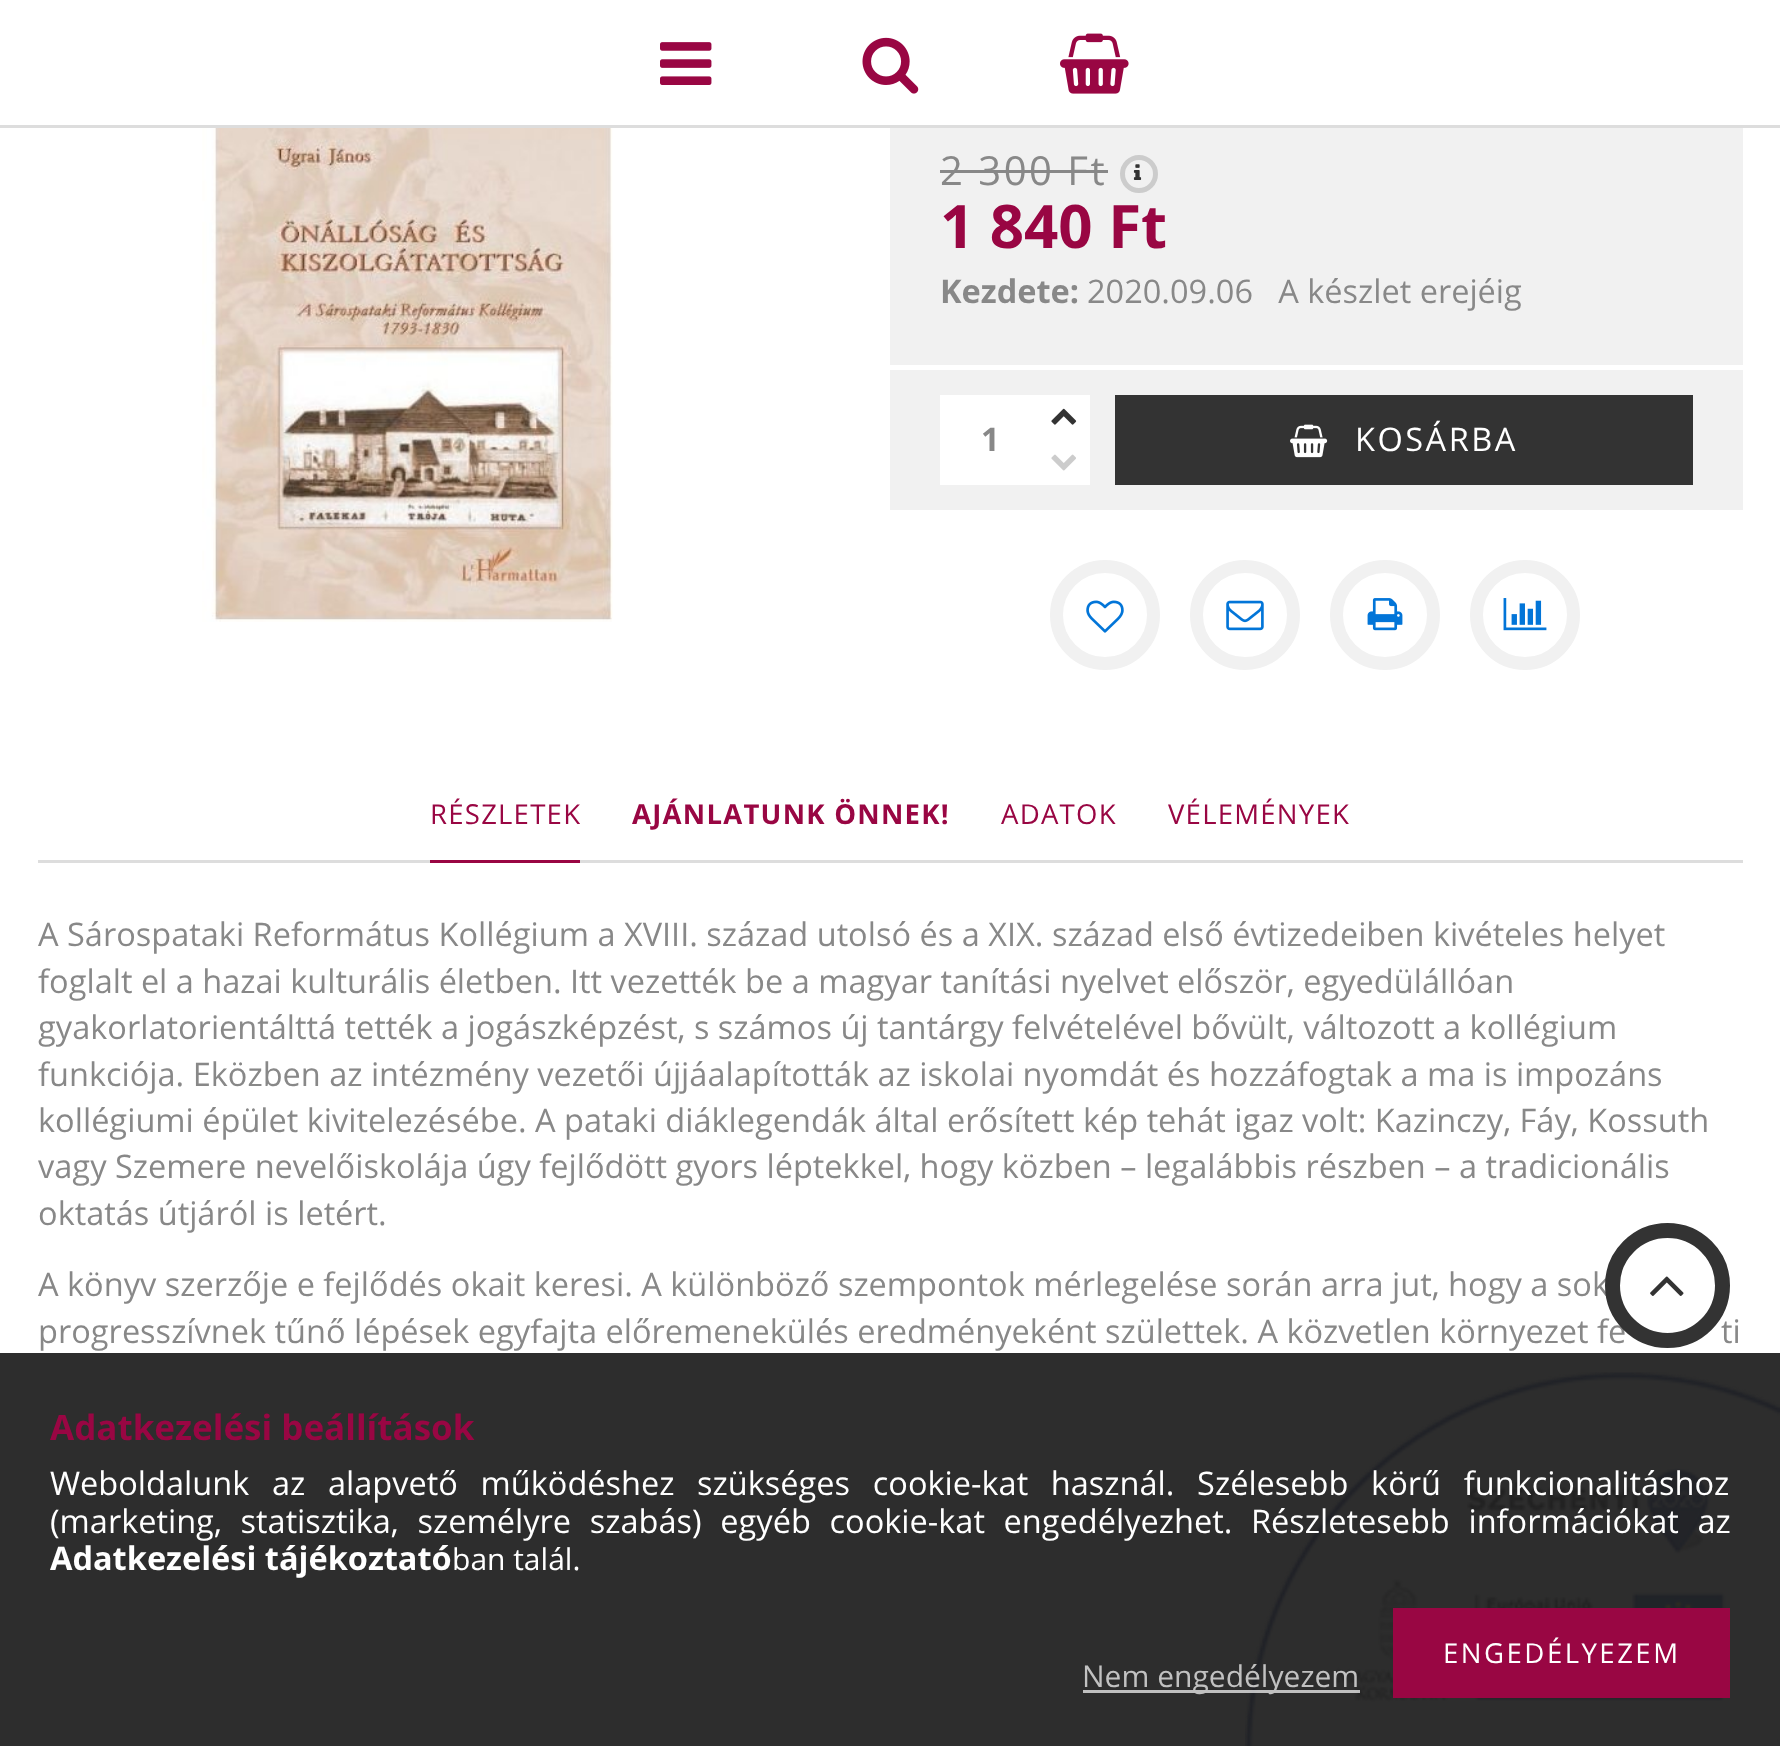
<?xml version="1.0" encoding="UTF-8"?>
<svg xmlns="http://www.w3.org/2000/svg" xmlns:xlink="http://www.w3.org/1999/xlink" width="1780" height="1746">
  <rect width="100%" height="100%" fill="#ffffff" />
  <rect y="1353" width="1780" height="393" fill="#2d2d2d" />
  <rect y="125" width="1780" height="3" fill="#dddddd" />
  <image x="660" y="42" width="52" height="43" xlink:href="image1.png" />
  <image x="862" y="37" width="57" height="57" xlink:href="image2.png" />
  <image x="1060" y="33" width="69" height="61" xlink:href="image3.png" />
  <image x="202" y="128" width="411" height="494" xlink:href="image4.png" />
  <rect x="890" y="128" width="853" height="237" fill="#f1f1f1" />
  <rect x="940" y="170" width="168" height="3" fill="#888888" />
  <circle cx="1139" cy="174" r="16.5" fill="none" stroke="#cccccc" stroke-width="5" />
  <image x="1133" y="164" width="9" height="16" xlink:href="image5.png" />
  <rect x="890" y="370" width="853" height="140" fill="#f1f1f1" />
  <rect x="940" y="395" width="100" height="90" fill="#ffffff" />
  <rect x="1040" y="395" width="50" height="90" fill="#ffffff" />
  <image x="1051" y="408" width="26" height="17" xlink:href="image6.png" />
  <image x="1051" y="454" width="25" height="17" xlink:href="image7.png" />
  <rect x="1115" y="395" width="578" height="90" fill="#333333" />
  <image x="1290" y="424" width="38" height="34" xlink:href="image8.png" />
  <circle cx="1105" cy="615" r="48.5" fill="none" stroke="#f1f1f1" stroke-width="13" />
  <image x="1086" y="600" width="38" height="33" xlink:href="image9.png" />
  <circle cx="1245" cy="615" r="48.5" fill="none" stroke="#f1f1f1" stroke-width="13" />
  <image x="1226" y="600" width="38" height="31" xlink:href="image10.png" />
  <circle cx="1385" cy="615" r="48.5" fill="none" stroke="#f1f1f1" stroke-width="13" />
  <image x="1367" y="598" width="36" height="33" xlink:href="image11.png" />
  <circle cx="1525" cy="615" r="48.5" fill="none" stroke="#f1f1f1" stroke-width="13" />
  <image x="1503" y="598" width="44" height="33" xlink:href="image12.png" />
  <rect x="38" y="860" width="1705" height="3" fill="#dddddd" />
  <rect x="430" y="860" width="150" height="3" fill="#990643" />
  <image x="1245" y="1372" width="535" height="374" xlink:href="image14.png" />
  <rect x="1393" y="1608" width="337" height="90" fill="#990643" />
  <rect x="1083" y="1690" width="277" height="3" fill="#ffffff" fill-opacity="0.7" />
  <text x="940" y="185" style="font-family: Open Sans; font-size: 40px; letter-spacing: 2.5px; fill: #888888">2 300 Ft</text>
  <text x="940" y="248" style="font-family: Open Sans; font-size: 60px; font-weight: bold; fill: #990643">1 840 Ft</text>
  <text x="940" y="303" style="font-family: Open Sans; font-size: 32.5px; font-weight: bold; fill: #888888">Kezdete:</text>
  <text x="1087" y="303" style="font-family: Open Sans; font-size: 32.5px; fill: #888888" xml:space="preserve">2020.09.06   A készlet erejéig</text>
  <text x="981" y="451" style="font-family: Open Sans; font-size: 32.5px; font-weight: bold; fill: #888888">1</text>
  <text x="1355" y="451" style="font-family: Open Sans; font-size: 32.5px; letter-spacing: 2.5px; fill: #ffffff">KOSÁRBA</text>
  <text x="430" y="824" style="font-family: Open Sans; font-size: 27.5px; letter-spacing: 1.25px; fill: #990643">RÉSZLETEK</text>
  <text x="632" y="824" style="font-family: Open Sans; font-size: 27.5px; font-weight: bold; letter-spacing: 1.25px; fill: #990643">AJÁNLATUNK ÖNNEK!</text>
  <text x="1001" y="824" style="font-family: Open Sans; font-size: 27.5px; letter-spacing: 1.25px; fill: #990643">ADATOK</text>
  <text x="1168" y="824" style="font-family: Open Sans; font-size: 27.5px; letter-spacing: 1.25px; fill: #990643">VÉLEMÉNYEK</text>
  <text x="38" y="946" style="font-family: Open Sans; font-size: 32.5px; fill: #888888">A Sárospataki Református Kollégium a XVIII. század utolsó és a XIX. század első évtizedeiben kivételes helyet</text>
  <text x="38" y="993" style="font-family: Open Sans; font-size: 32.5px; fill: #888888">foglalt el a hazai kulturális életben. Itt vezették be a magyar tanítási nyelvet először, egyedülállóan</text>
  <text x="38" y="1039" style="font-family: Open Sans; font-size: 32.5px; fill: #888888">gyakorlatorientálttá tették a jogászképzést, s számos új tantárgy felvételével bővült, változott a kollégium</text>
  <text x="38" y="1086" style="font-family: Open Sans; font-size: 32.5px; fill: #888888">funkciója. Eközben az intézmény vezetői újjáalapították az iskolai nyomdát és hozzáfogtak a ma is impozáns</text>
  <text x="38" y="1132" style="font-family: Open Sans; font-size: 32.5px; fill: #888888">kollégiumi épület kivitelezésébe. A pataki diáklegendák által erősített kép tehát igaz volt: Kazinczy, Fáy, Kossuth</text>
  <text x="38" y="1178" style="font-family: Open Sans; font-size: 32.5px; fill: #888888">vagy Szemere nevelőiskolája úgy fejlődött gyors léptekkel, hogy közben – legalábbis részben – a tradicionális</text>
  <text x="38" y="1225" style="font-family: Open Sans; font-size: 32.5px; fill: #888888">oktatás útjáról is letért.</text>
  <text x="38" y="1296" style="font-family: Open Sans; font-size: 32.5px; fill: #888888">A könyv szerzője e fejlődés okait keresi. A különböző szempontok mérlegelése során arra jut, hogy a sok</text>
  <text x="38" y="1343" style="font-family: Open Sans; font-size: 32.5px; fill: #888888">progresszívnek tűnő lépések egyfajta előremenekülés eredményeként születtek. A közvetlen környezet fe</text>
  <text x="1721" y="1343" style="font-family: Open Sans; font-size: 32.5px; fill: #888888">ti</text>
  <circle cx="1667.5" cy="1285.5" r="55" fill="#ffffff" fill-opacity="0.8" stroke="#333333" stroke-width="15" />
  <image x="1650" y="1276" width="34" height="20" xlink:href="image13.png" />
  <text x="50" y="1440" style="font-family: Open Sans; font-size: 35px; font-weight: bold; fill: #990643">Adatkezelési beállítások</text>
  <text x="50" y="1495" word-spacing="14.25" style="font-family: Open Sans; font-size: 32.5px; fill: #ffffff">Weboldalunk az alapvető működéshez szükséges cookie-kat használ. Szélesebb körű funkcionalitáshoz</text>
  <text x="50" y="1533" word-spacing="10.25" style="font-family: Open Sans; font-size: 32.5px; fill: #ffffff">(marketing, statisztika, személyre szabás) egyéb cookie-kat engedélyezhet. Részletesebb információkat az</text>
  <text x="50" y="1570" style="font-family: Open Sans; font-size: 32.5px; font-weight: bold; fill: #ffffff">Adatkezelési tájékoztató</text>
  <text x="452" y="1570" style="font-family: Open Sans; font-size: 30px; fill: #ffffff">ban talál.</text>
  <text x="1443" y="1663" style="font-family: Open Sans; font-size: 27.5px; letter-spacing: 2.5px; fill: #ffffff">ENGEDÉLYEZEM</text>
  <text x="1082" y="1687" style="font-family: Open Sans; font-size: 30px; fill: #c1c1c1">Nem engedélyezem</text>
</svg>
